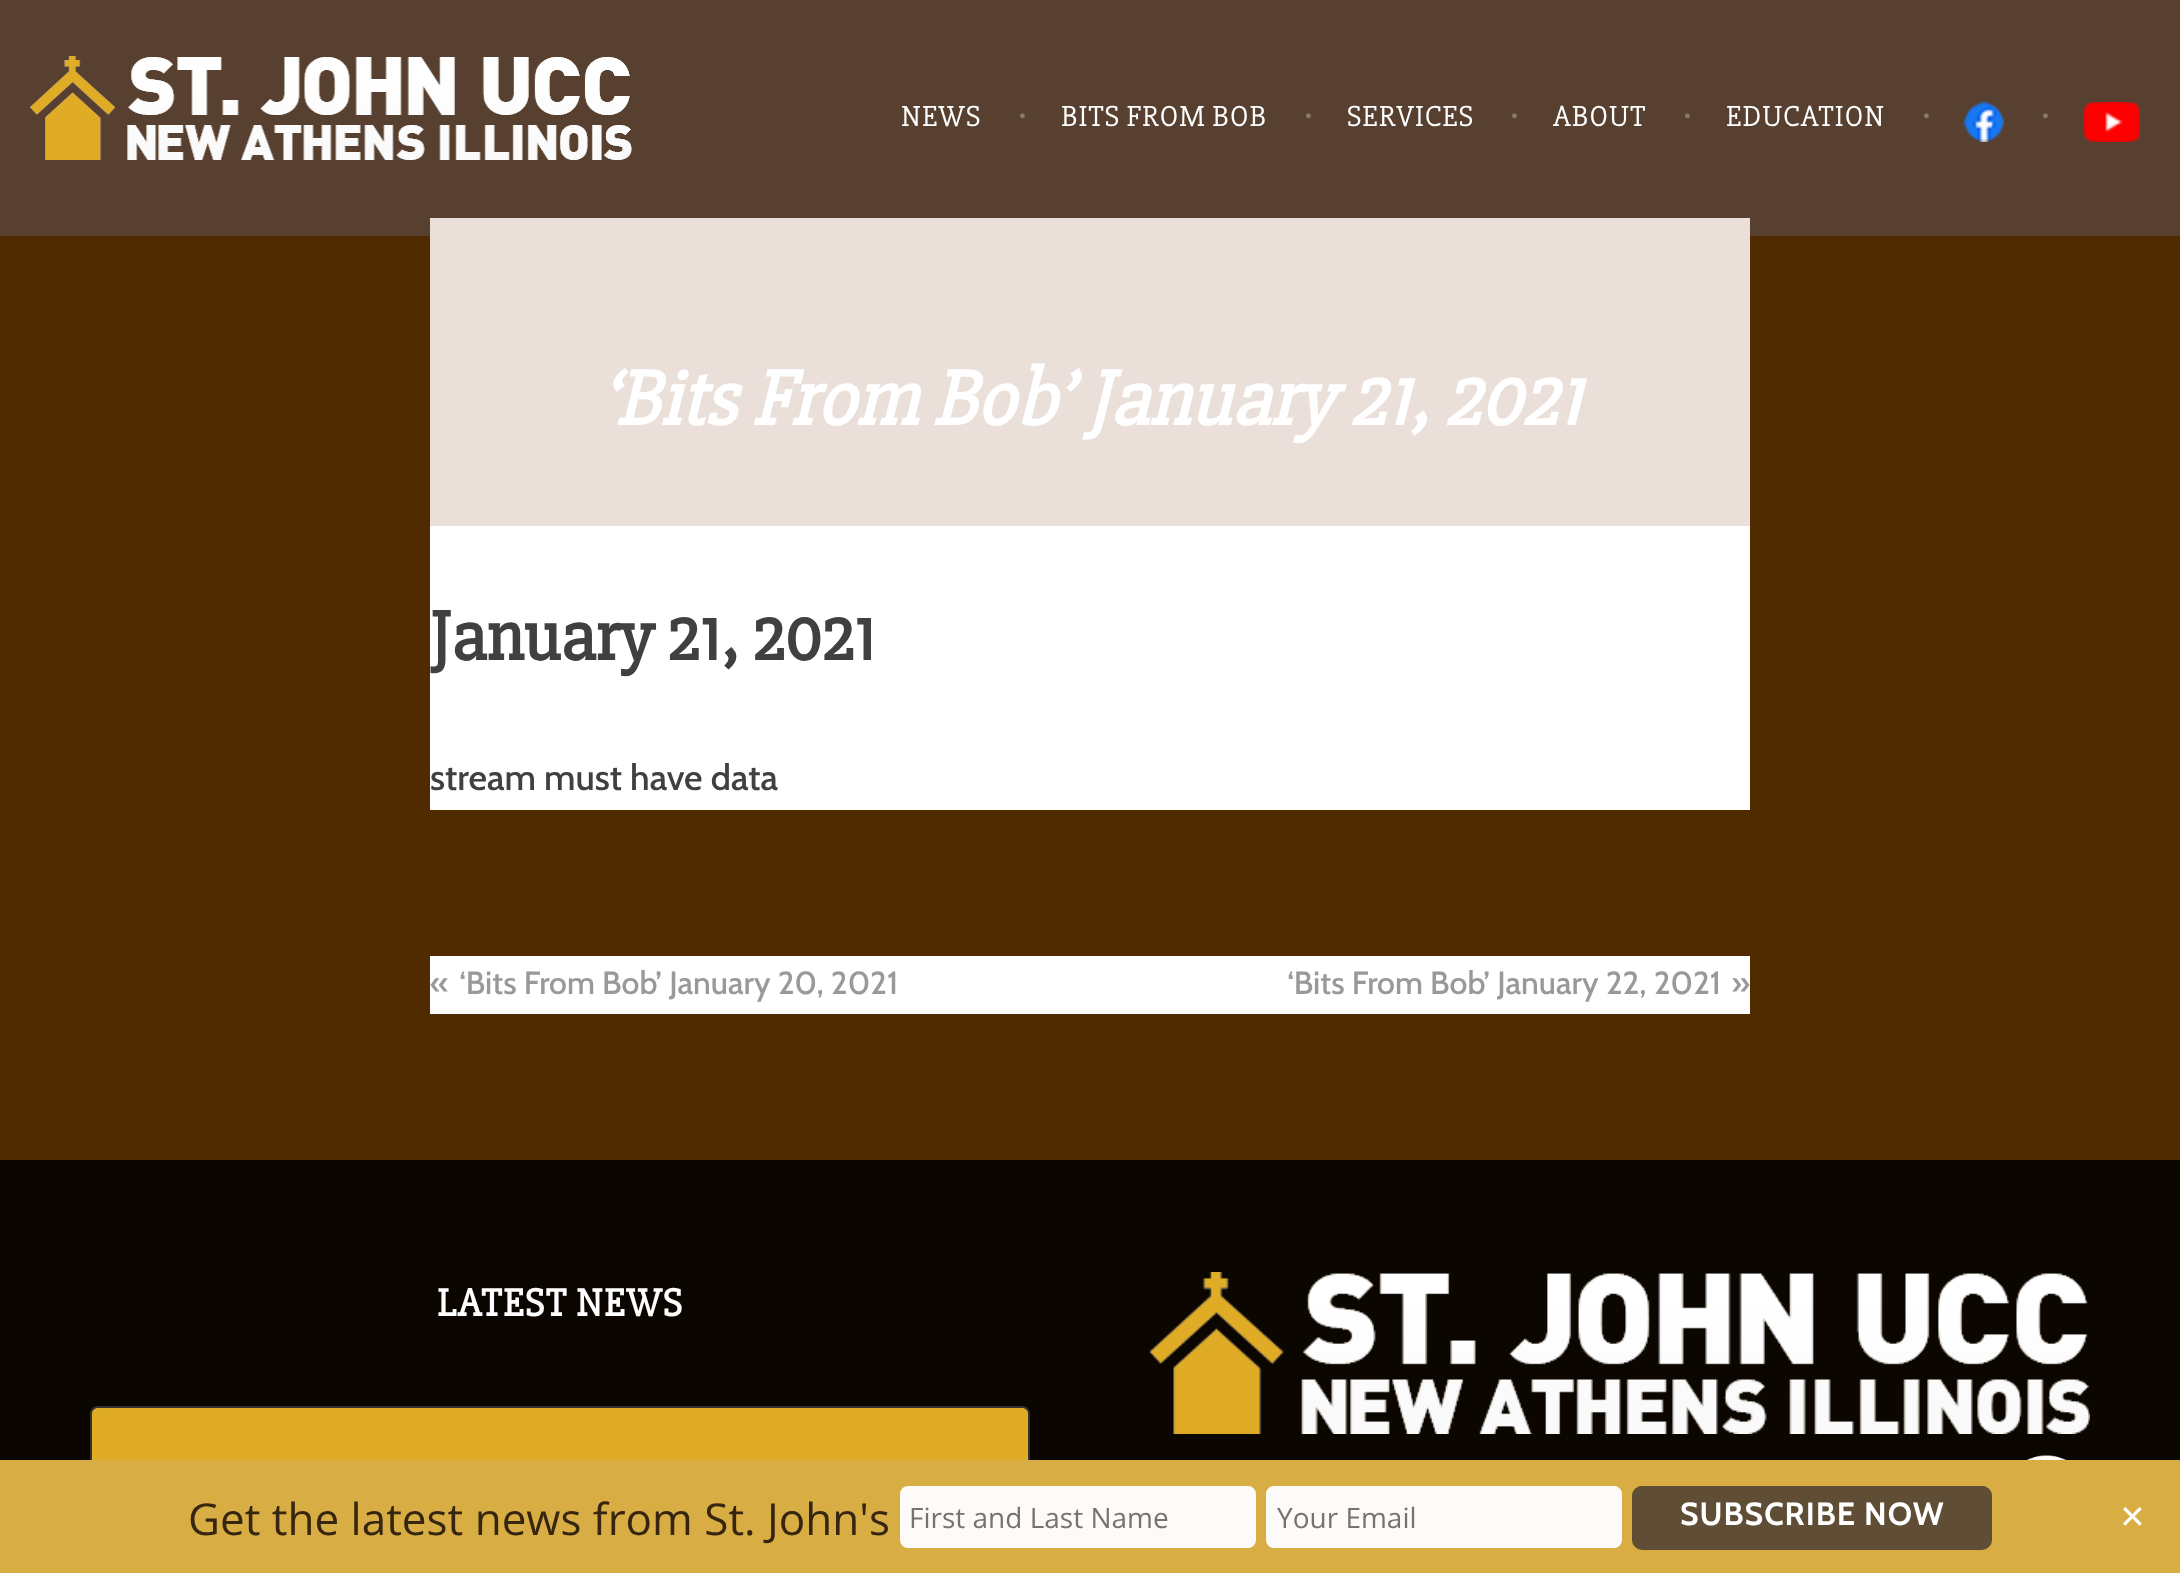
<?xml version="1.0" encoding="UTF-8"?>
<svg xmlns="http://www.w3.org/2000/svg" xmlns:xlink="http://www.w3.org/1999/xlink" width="2180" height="1573">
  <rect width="100%" height="100%" fill="#512b00" />
  <rect width="2180" height="236" fill="#57402f" />
  <image x="30" y="56" width="602" height="104" xlink:href="image1.png" />
  <image x="1964" y="102" width="40" height="40" xlink:href="image2.png" />
  <image x="2084" y="102" width="56" height="40" xlink:href="image3.png" />
  <rect x="430" y="526" width="1320" height="284" fill="#ffffff" />
  <rect x="430" y="218" width="1320" height="308" fill="#eae0d9" />
  <rect x="430" y="956" width="1320" height="58" fill="#ffffff" />
  <rect y="1160" width="2180" height="300" fill="#0b0600" />
  <rect x="90" y="1406" width="940" height="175" rx="8" fill="#333333" />
  <path d="M 98 1408 h 924 c 3.5 0 6 2.5 6 6 v 92 h -936 v -92 c 0 -3.5 2.5 -6 6 -6 z" fill="#e0ab25" />
  <image x="1150" y="1272" width="940" height="162" xlink:href="image4.png" />
  <image x="2027" y="1455" width="39" height="5" xlink:href="image5.png" />
  <rect y="1460" width="2180" height="113" fill="#d8ad44" />
  <rect x="899" y="1485" width="358" height="64" rx="9" fill="#fdfbf9" stroke="#d8ad44" stroke-width="2" />
  <rect x="1265" y="1485" width="358" height="64" rx="9" fill="#fdfbf9" stroke="#d8ad44" stroke-width="2" />
  <rect x="1632" y="1486" width="360" height="64" rx="10" fill="#5f4e35" />
  <rect x="1632" y="1486" width="360" height="60" rx="10" fill="#5f4e35" />
  <text x="901" y="126" style="font-family: 'Slabo 27px'; font-size: 30px; letter-spacing: 0.9px; fill: #ffffff">NEWS</text>
  <text x="1018" y="126" style="font-family: 'Slabo 27px'; font-size: 30px; letter-spacing: 0.9px; fill: #89796d">•</text>
  <text x="1061" y="126" style="font-family: 'Slabo 27px'; font-size: 30px; letter-spacing: 0.9px; fill: #ffffff">BITS FROM BOB</text>
  <text x="1304" y="126" style="font-family: 'Slabo 27px'; font-size: 30px; letter-spacing: 0.9px; fill: #89796d">•</text>
  <text x="1347" y="126" style="font-family: 'Slabo 27px'; font-size: 30px; letter-spacing: 0.9px; fill: #ffffff">SERVICES</text>
  <text x="1510" y="126" style="font-family: 'Slabo 27px'; font-size: 30px; letter-spacing: 0.9px; fill: #89796d">•</text>
  <text x="1553" y="126" style="font-family: 'Slabo 27px'; font-size: 30px; letter-spacing: 0.9px; fill: #ffffff">ABOUT</text>
  <text x="1683" y="126" style="font-family: 'Slabo 27px'; font-size: 30px; letter-spacing: 0.9px; fill: #89796d">•</text>
  <text x="1726" y="126" style="font-family: 'Slabo 27px'; font-size: 30px; letter-spacing: 0.9px; fill: #ffffff">EDUCATION</text>
  <text x="1922" y="126" style="font-family: 'Slabo 27px'; font-size: 30px; letter-spacing: 0.9px; fill: #89796d">•</text>
  <text x="2041" y="126" style="font-family: 'Slabo 27px'; font-size: 30px; letter-spacing: 0.9px; fill: #89796d">•</text>
  <text x="600" y="425" style="font-family: 'Slabo 27px'; font-size: 80px; font-weight: bold; font-style: italic; fill: #ffffff">‘Bits From Bob’ January 21, 2021</text>
  <text x="430" y="660" style="font-family: 'Slabo 27px'; font-size: 72px; font-weight: bold; fill: #404040">January 21, 2021</text>
  <text x="430" y="790" style="font-family: Cabin; font-size: 36px; font-weight: 500; fill: #404040">stream must have data</text>
  <text x="430" y="994" style="font-family: Cabin; font-size: 32px; font-weight: 500; fill: #999999">«</text>
  <text x="459" y="994" style="font-family: Cabin; font-size: 32px; font-weight: 500; fill: #999999">‘Bits From Bob’ January 20, 2021</text>
  <text x="1287" y="994" style="font-family: Cabin; font-size: 32px; font-weight: 500; fill: #999999">‘Bits From Bob’ January 22, 2021</text>
  <text x="1731" y="994" style="font-family: Cabin; font-size: 32px; font-weight: 500; fill: #999999">»</text>
  <text x="437" y="1316" style="font-family: 'Slabo 27px'; font-size: 40px; font-weight: bold; letter-spacing: 1.25px; fill: #ffffff">LATEST NEWS</text>
  <text x="188" y="1535" style="font-family: Open Sans; font-size: 44px; fill: #362610">Get the latest news from St. John's</text>
  <text x="909" y="1528" style="font-family: Open Sans; font-size: 28px; fill: #777271">First and Last Name</text>
  <text x="1277" y="1528" style="font-family: Open Sans; font-size: 28px; fill: #777271">Your Email</text>
  <text x="1680" y="1525" style="font-family: Cabin; font-size: 32px; font-weight: bold; letter-spacing: 1px; fill: #ffffff">SUBSCRIBE NOW</text>
  <text x="2119" y="1528" style="font-family: DejaVu Sans; font-size: 32px; fill: #ffffff">✕</text>
</svg>
